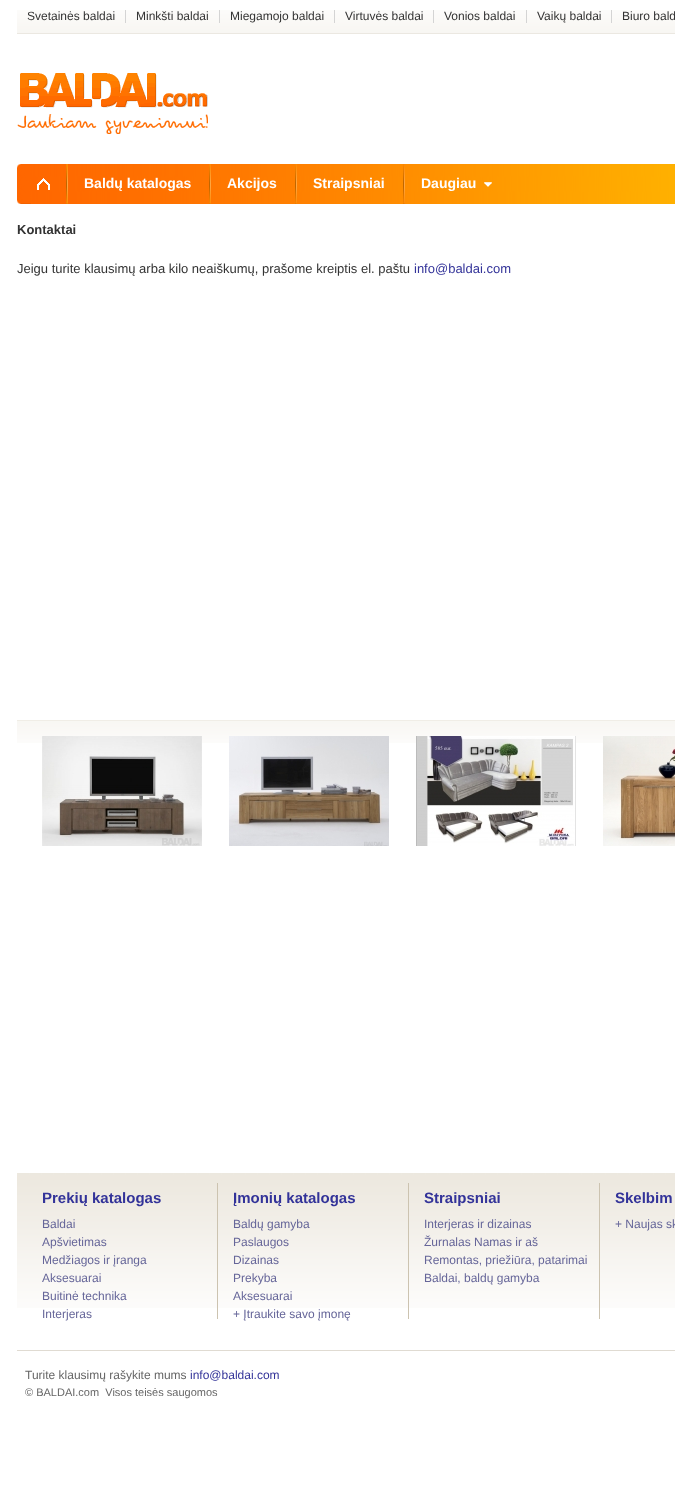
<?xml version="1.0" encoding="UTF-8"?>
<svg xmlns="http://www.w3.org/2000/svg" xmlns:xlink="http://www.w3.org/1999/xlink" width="675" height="1491">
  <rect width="100%" height="100%" fill="#ffffff" />
  <image x="17" y="10" width="658" height="23" xlink:href="image1.png" />
  <rect x="17" y="33" width="658" height="1" fill="#ebe8e1" />
  <rect x="125" y="10" width="1" height="13" fill="#d4d4d4" />
  <rect x="219" y="10" width="1" height="13" fill="#d4d4d4" />
  <rect x="334" y="10" width="1" height="13" fill="#d4d4d4" />
  <rect x="433" y="10" width="1" height="13" fill="#d4d4d4" />
  <rect x="526" y="10" width="1" height="13" fill="#d4d4d4" />
  <rect x="611" y="10" width="1" height="13" fill="#d4d4d4" />
  <image x="17" y="73" width="191" height="61" xlink:href="image2.png" />
  <image x="17" y="164" width="658" height="40" xlink:href="image3.png" />
  <image x="37" y="178" width="13" height="12" xlink:href="image4.png" />
  <image x="66" y="164" width="2" height="40" xlink:href="image5.png" />
  <image x="209" y="164" width="2" height="40" xlink:href="image5.png" />
  <image x="295" y="164" width="2" height="40" xlink:href="image5.png" />
  <image x="403" y="164" width="2" height="40" xlink:href="image5.png" />
  <image x="484" y="182" width="8" height="5" xlink:href="image6.png" />
  <image x="17" y="721" width="658" height="22" xlink:href="image7.png" />
  <rect x="17" y="720" width="658" height="1" fill="#f0ede6" />
  <image x="42" y="736" width="160" height="110" xlink:href="image8.png" />
  <image x="229" y="736" width="160" height="110" xlink:href="image9.png" />
  <image x="416" y="736" width="160" height="110" xlink:href="image10.png" />
  <image x="603" y="736" width="72" height="110" xlink:href="image11.png" />
  <image x="17" y="1173" width="658" height="135" xlink:href="image12.png" />
  <rect x="217" y="1183" width="1" height="136" fill="#ccc3b0" />
  <rect x="408" y="1183" width="1" height="136" fill="#ccc3b0" />
  <rect x="599" y="1183" width="1" height="136" fill="#ccc3b0" />
  <rect x="17" y="1350" width="658" height="1" fill="#e0dbd2" />
  <text x="27" y="20" style="font-family: Liberation Sans; font-size: 12px; fill: #333333">Svetainės baldai</text>
  <text x="136" y="20" style="font-family: Liberation Sans; font-size: 12px; fill: #333333">Minkšti baldai</text>
  <text x="230" y="20" style="font-family: Liberation Sans; font-size: 12px; fill: #333333">Miegamojo baldai</text>
  <text x="345" y="20" style="font-family: Liberation Sans; font-size: 12px; fill: #333333">Virtuvės baldai</text>
  <text x="444" y="20" style="font-family: Liberation Sans; font-size: 12px; fill: #333333">Vonios baldai</text>
  <text x="537" y="20" style="font-family: Liberation Sans; font-size: 12px; fill: #333333">Vaikų baldai</text>
  <text x="622" y="20" style="font-family: Liberation Sans; font-size: 12px; fill: #333333">Biuro bald</text>
  <text x="84" y="188" style="font-family: Liberation Sans; font-size: 14px; font-weight: bold; fill: #ffffff">Baldų katalogas</text>
  <text x="227" y="188" style="font-family: Liberation Sans; font-size: 14px; font-weight: bold; fill: #ffffff">Akcijos</text>
  <text x="313" y="188" style="font-family: Liberation Sans; font-size: 14px; font-weight: bold; fill: #ffffff">Straipsniai</text>
  <text x="421" y="188" style="font-family: Liberation Sans; font-size: 14px; font-weight: bold; fill: #ffffff">Daugiau</text>
  <text x="17" y="234" style="font-family: Liberation Sans; font-size: 13px; font-weight: bold; fill: #333333">Kontaktai</text>
  <text x="17" y="273" style="font-family: Liberation Sans; font-size: 13px; fill: #333333">Jeigu turite klausimų arba kilo neaiškumų, prašome kreiptis el. paštu</text>
  <text x="414" y="273" style="font-family: Liberation Sans; font-size: 13px; fill: #333399">info@baldai.com</text>
  <text x="42" y="1203" style="font-family: Liberation Sans; font-size: 15px; font-weight: bold; fill: #333399">Prekių katalogas</text>
  <text x="42" y="1228" style="font-family: Liberation Sans; font-size: 12px; fill: #666699">Baldai</text>
  <text x="42" y="1246" style="font-family: Liberation Sans; font-size: 12px; fill: #666699">Apšvietimas</text>
  <text x="42" y="1264" style="font-family: Liberation Sans; font-size: 12px; fill: #666699">Medžiagos ir įranga</text>
  <text x="42" y="1282" style="font-family: Liberation Sans; font-size: 12px; fill: #666699">Aksesuarai</text>
  <text x="42" y="1300" style="font-family: Liberation Sans; font-size: 12px; fill: #666699">Buitinė technika</text>
  <text x="42" y="1318" style="font-family: Liberation Sans; font-size: 12px; fill: #666699">Interjeras</text>
  <text x="233" y="1203" style="font-family: Liberation Sans; font-size: 15px; font-weight: bold; fill: #333399">Įmonių katalogas</text>
  <text x="233" y="1228" style="font-family: Liberation Sans; font-size: 12px; fill: #666699">Baldų gamyba</text>
  <text x="233" y="1246" style="font-family: Liberation Sans; font-size: 12px; fill: #666699">Paslaugos</text>
  <text x="233" y="1264" style="font-family: Liberation Sans; font-size: 12px; fill: #666699">Dizainas</text>
  <text x="233" y="1282" style="font-family: Liberation Sans; font-size: 12px; fill: #666699">Prekyba</text>
  <text x="233" y="1300" style="font-family: Liberation Sans; font-size: 12px; fill: #666699">Aksesuarai</text>
  <text x="233" y="1318" style="font-family: Liberation Sans; font-size: 12px; fill: #666699">+ Įtraukite savo įmonę</text>
  <text x="424" y="1203" style="font-family: Liberation Sans; font-size: 15px; font-weight: bold; fill: #333399">Straipsniai</text>
  <text x="424" y="1228" style="font-family: Liberation Sans; font-size: 12px; fill: #666699">Interjeras ir dizainas</text>
  <text x="424" y="1246" style="font-family: Liberation Sans; font-size: 12px; fill: #666699">Žurnalas Namas ir aš</text>
  <text x="424" y="1264" style="font-family: Liberation Sans; font-size: 12px; fill: #666699">Remontas, priežiūra, patarimai</text>
  <text x="424" y="1282" style="font-family: Liberation Sans; font-size: 12px; fill: #666699">Baldai, baldų gamyba</text>
  <text x="615" y="1203" style="font-family: Liberation Sans; font-size: 15px; font-weight: bold; fill: #333399">Skelbim</text>
  <text x="615" y="1228" style="font-family: Liberation Sans; font-size: 12px; fill: #666699">+ Naujas sk</text>
  <text x="25" y="1379" style="font-family: Liberation Sans; font-size: 12px; fill: #666666">Turite klausimų rašykite mums</text>
  <text x="190" y="1379" style="font-family: Liberation Sans; font-size: 12px; fill: #333399">info@baldai.com</text>
  <text x="25" y="1396" style="font-family: Liberation Sans; font-size: 11px; fill: #666666" xml:space="preserve">© BALDAI.com  Visos teisės saugomos</text>
</svg>
